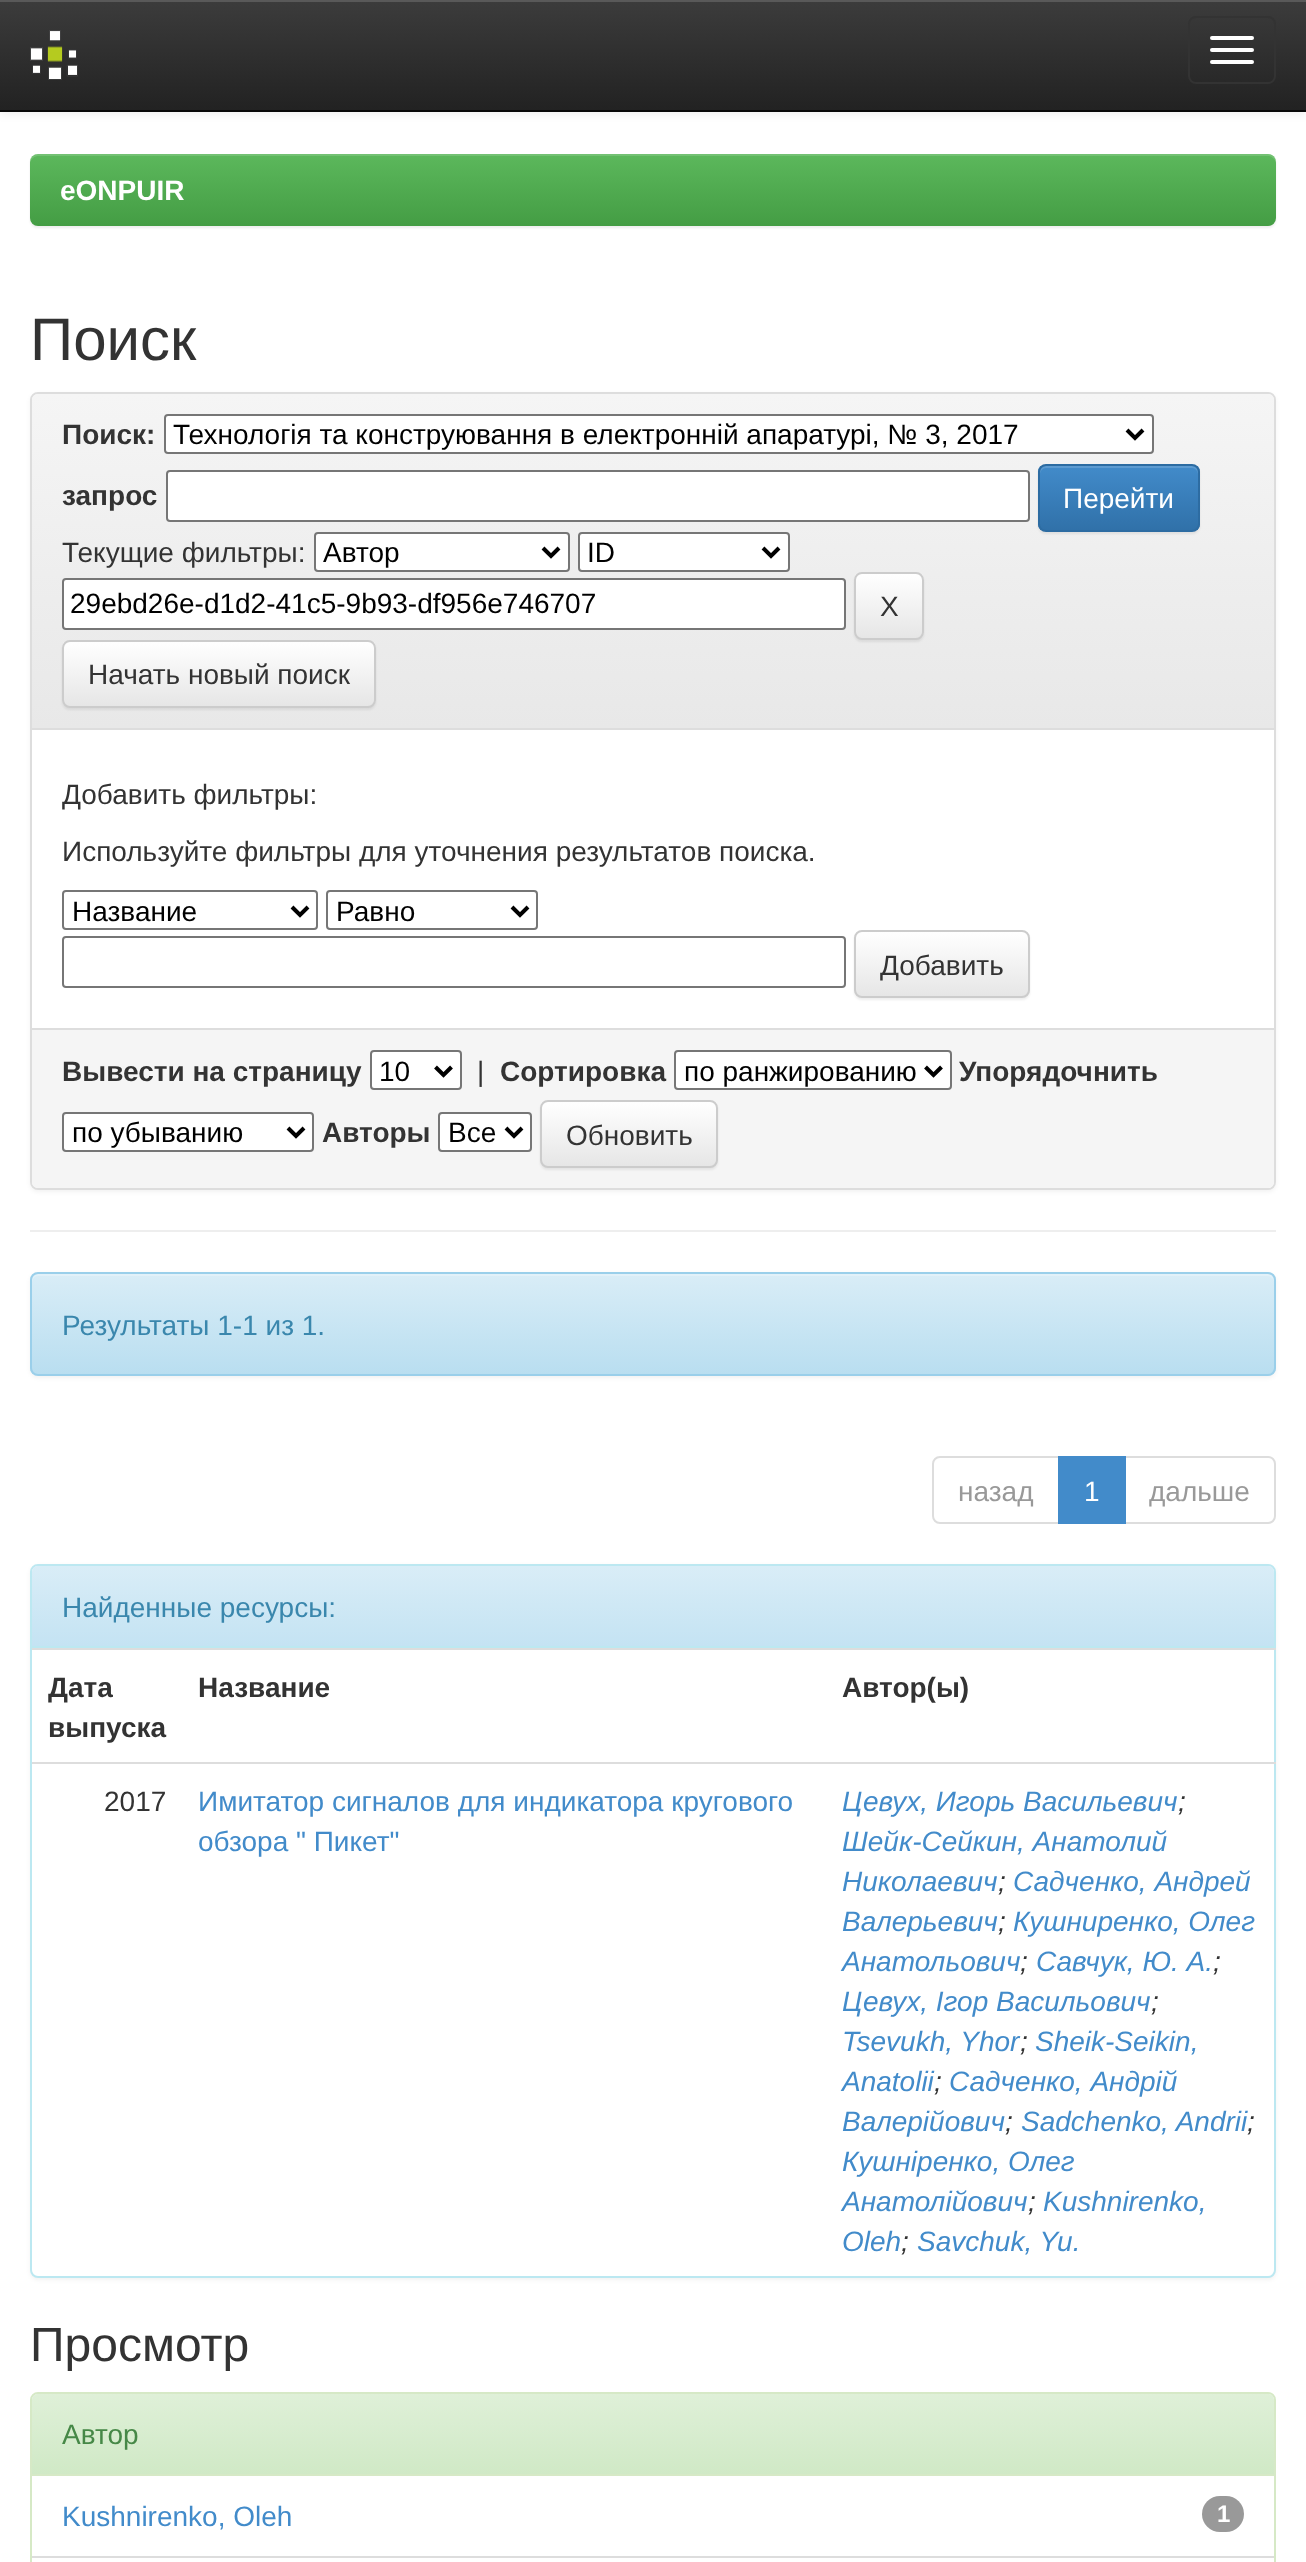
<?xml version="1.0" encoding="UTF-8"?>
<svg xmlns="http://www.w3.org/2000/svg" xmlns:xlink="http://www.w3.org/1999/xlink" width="1306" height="2562">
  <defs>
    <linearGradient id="g1" gradientUnits="userSpaceOnUse" x1="653" y1="0" x2="653" y2="110"><stop offset="0" stop-color="#3c3c3c" /><stop offset="1" stop-color="#222222" /></linearGradient>
    <linearGradient id="g2" gradientUnits="userSpaceOnUse" x1="653" y1="154" x2="653" y2="226"><stop offset="0" stop-color="#5cb85c" /><stop offset="1" stop-color="#449d44" /></linearGradient>
    <linearGradient id="g3" gradientUnits="userSpaceOnUse" x1="653" y1="394" x2="653" y2="728"><stop offset="0" stop-color="#f5f5f5" /><stop offset="1" stop-color="#e8e8e8" /></linearGradient>
    <clipPath id="clip1"><rect x="1038" y="464" width="162" height="68" rx="8" /></clipPath>
    <linearGradient id="g4" gradientUnits="userSpaceOnUse" x1="1119" y1="466" x2="1119" y2="530"><stop offset="0" stop-color="#428bca" /><stop offset="1" stop-color="#3071a9" /></linearGradient>
    <clipPath id="clip2"><rect x="854" y="572" width="70" height="68" rx="8" /></clipPath>
    <linearGradient id="g5" gradientUnits="userSpaceOnUse" x1="889" y1="574" x2="889" y2="638"><stop offset="0" stop-color="#ffffff" /><stop offset="1" stop-color="#e6e6e6" /></linearGradient>
    <clipPath id="clip3"><rect x="62" y="640" width="314" height="68" rx="8" /></clipPath>
    <linearGradient id="g6" gradientUnits="userSpaceOnUse" x1="219" y1="642" x2="219" y2="706"><stop offset="0" stop-color="#ffffff" /><stop offset="1" stop-color="#e6e6e6" /></linearGradient>
    <clipPath id="clip4"><rect x="854" y="930" width="176" height="68" rx="8" /></clipPath>
    <linearGradient id="g7" gradientUnits="userSpaceOnUse" x1="942" y1="932" x2="942" y2="996"><stop offset="0" stop-color="#ffffff" /><stop offset="1" stop-color="#e6e6e6" /></linearGradient>
    <clipPath id="clip5"><rect x="540" y="1100" width="178" height="68" rx="8" /></clipPath>
    <linearGradient id="g8" gradientUnits="userSpaceOnUse" x1="629" y1="1102" x2="629" y2="1166"><stop offset="0" stop-color="#ffffff" /><stop offset="1" stop-color="#e6e6e6" /></linearGradient>
    <clipPath id="clip6"><rect x="30" y="1272" width="1246" height="104" rx="8" /></clipPath>
    <linearGradient id="g9" gradientUnits="userSpaceOnUse" x1="653" y1="1274" x2="653" y2="1374"><stop offset="0" stop-color="#d9edf7" /><stop offset="1" stop-color="#b9def0" /></linearGradient>
    <linearGradient id="g10" gradientUnits="userSpaceOnUse" x1="653" y1="1566" x2="653" y2="1646"><stop offset="0" stop-color="#d9edf7" /><stop offset="1" stop-color="#c4e3f3" /></linearGradient>
    <linearGradient id="g11" gradientUnits="userSpaceOnUse" x1="653" y1="2394" x2="653" y2="2474"><stop offset="0" stop-color="#dff0d8" /><stop offset="1" stop-color="#d0e9c6" /></linearGradient>
  </defs>
  <rect width="100%" height="100%" fill="#ffffff" />
  <rect y="2" width="1306" height="112" fill="#000000" fill-opacity="0.07" filter="blur(5px)" />
  <rect y="2" width="1306" height="108" fill="url(#g1)" />
  <rect width="1306" height="2" fill="#595959" />
  <rect y="110" width="1306" height="2" fill="#080808" />
  <image x="30" y="30" width="48" height="50" xlink:href="image1.png" />
  <rect x="1189" y="17" width="86" height="66" rx="7" fill="none" stroke="#333333" stroke-width="2" />
  <rect x="1210" y="36" width="44" height="4" rx="2" fill="#ffffff" />
  <rect x="1210" y="48" width="44" height="4" rx="2" fill="#ffffff" />
  <rect x="1210" y="60" width="44" height="4" rx="2" fill="#ffffff" />
  <rect x="30" y="156" width="1246" height="72" rx="8" fill="#000000" fill-opacity="0.07" filter="blur(1px)" />
  <rect x="30" y="154" width="1246" height="72" rx="8" fill="url(#g2)" />
  <path d="M 38 156 h 1230 c 4 0 8 4 8 8 v -2 c 0 -4 -4 -8 -8 -8 h -1230 c -4 0 -8 4 -8 8 v 2 c 0 -4 4 -8 8 -8 z" fill="#ffffff" fill-opacity="0.15" />
  <rect x="30" y="394" width="1246" height="798" rx="8" fill="#000000" fill-opacity="0.05" filter="blur(2px)" />
  <rect x="31" y="393" width="1244" height="796" rx="7" fill="#ffffff" stroke="#dddddd" stroke-width="2" />
  <path d="M 38 394 h 1230 c 3.5 0 6 2.5 6 6 v 328 h -1242 v -328 c 0 -3.5 2.5 -6 6 -6 z" fill="url(#g3)" />
  <rect x="32" y="728" width="1242" height="2" fill="#dddddd" />
  <rect x="165" y="415" width="988" height="38" rx="3" fill="#ffffff" stroke="#767676" stroke-width="2" />
  <path d="M 1127 430 l 8 8 l 8 -8" fill="none" stroke="#000000" stroke-width="4" />
  <rect x="167" y="471" width="862" height="50" rx="3" fill="#ffffff" stroke="#767676" stroke-width="2" />
  <rect x="1038" y="466" width="162" height="68" rx="8" fill="#000000" fill-opacity="0.07" filter="blur(1px)" />
  <g clip-path="url(#clip1)">
    <rect x="1038" y="466" width="162" height="64" fill="url(#g4)" />
  </g>
  <path d="M 1046 468 h 146 c 3 0 6 3 6 6 v -2 c 0 -3 -3 -6 -6 -6 h -146 c -3 0 -6 3 -6 6 v 2 c 0 -3 3 -6 6 -6 z" fill="#ffffff" fill-opacity="0.15" />
  <rect x="1039" y="465" width="160" height="66" rx="7" fill="none" stroke="#2d6ca2" stroke-width="2" />
  <rect x="315" y="533" width="254" height="38" rx="3" fill="#ffffff" stroke="#767676" stroke-width="2" />
  <path d="M 543 548 l 8 8 l 8 -8" fill="none" stroke="#000000" stroke-width="4" />
  <rect x="579" y="533" width="210" height="38" rx="3" fill="#ffffff" stroke="#767676" stroke-width="2" />
  <path d="M 763 548 l 8 8 l 8 -8" fill="none" stroke="#000000" stroke-width="4" />
  <rect x="63" y="579" width="782" height="50" rx="3" fill="#ffffff" stroke="#767676" stroke-width="2" />
  <rect x="854" y="574" width="70" height="68" rx="8" fill="#000000" fill-opacity="0.07" filter="blur(1px)" />
  <g clip-path="url(#clip2)">
    <rect x="854" y="574" width="70" height="64" fill="url(#g5)" />
  </g>
  <rect x="855" y="573" width="68" height="66" rx="7" fill="none" stroke="#cccccc" stroke-width="2" />
  <rect x="62" y="642" width="314" height="68" rx="8" fill="#000000" fill-opacity="0.07" filter="blur(1px)" />
  <g clip-path="url(#clip3)">
    <rect x="62" y="642" width="314" height="64" fill="url(#g6)" />
  </g>
  <rect x="63" y="641" width="312" height="66" rx="7" fill="none" stroke="#cccccc" stroke-width="2" />
  <rect x="63" y="891" width="254" height="38" rx="3" fill="none" stroke="#767676" stroke-width="2" />
  <path d="M 292 907 l 8 8 l 8 -8" fill="none" stroke="#000000" stroke-width="4" />
  <rect x="327" y="891" width="210" height="38" rx="3" fill="none" stroke="#767676" stroke-width="2" />
  <path d="M 512 907 l 8 8 l 8 -8" fill="none" stroke="#000000" stroke-width="4" />
  <rect x="63" y="937" width="782" height="50" rx="3" fill="none" stroke="#767676" stroke-width="2" />
  <rect x="854" y="932" width="176" height="68" rx="8" fill="#000000" fill-opacity="0.07" filter="blur(1px)" />
  <g clip-path="url(#clip4)">
    <rect x="854" y="932" width="176" height="64" fill="url(#g7)" />
  </g>
  <rect x="855" y="931" width="174" height="66" rx="7" fill="none" stroke="#cccccc" stroke-width="2" />
  <path d="M 32 1028 h 1242 v 154 c 0 3.5 -2.5 6 -6 6 h -1230 c -3.5 0 -6 -2.5 -6 -6 z" fill="#f5f5f5" />
  <rect x="32" y="1028" width="1242" height="2" fill="#dddddd" />
  <rect x="371" y="1051" width="90" height="38" rx="3" fill="#ffffff" stroke="#767676" stroke-width="2" />
  <path d="M 435.5 1067 l 8 8 l 8 -8" fill="none" stroke="#000000" stroke-width="4" />
  <rect x="675" y="1051" width="276" height="38" rx="3" fill="#ffffff" stroke="#767676" stroke-width="2" />
  <path d="M 925.5 1067 l 8 8 l 8 -8" fill="none" stroke="#000000" stroke-width="4" />
  <rect x="63" y="1113" width="250" height="38" rx="3" fill="#ffffff" stroke="#767676" stroke-width="2" />
  <path d="M 288 1128 l 8 8 l 8 -8" fill="none" stroke="#000000" stroke-width="4" />
  <rect x="439" y="1113" width="92" height="38" rx="3" fill="#ffffff" stroke="#767676" stroke-width="2" />
  <path d="M 506 1128 l 8 8 l 8 -8" fill="none" stroke="#000000" stroke-width="4" />
  <rect x="540" y="1102" width="178" height="68" rx="8" fill="#000000" fill-opacity="0.07" filter="blur(1px)" />
  <g clip-path="url(#clip5)">
    <rect x="540" y="1102" width="178" height="64" fill="url(#g8)" />
  </g>
  <rect x="541" y="1101" width="176" height="66" rx="7" fill="none" stroke="#cccccc" stroke-width="2" />
  <rect x="30" y="1230" width="1246" height="2" fill="#eeeeee" />
  <rect x="30" y="1274" width="1246" height="104" rx="8" fill="#000000" fill-opacity="0.05" filter="blur(2px)" />
  <g clip-path="url(#clip6)">
    <rect x="30" y="1274" width="1246" height="100" fill="url(#g9)" />
  </g>
  <path d="M 38 1276 h 1230 c 3 0 6 3 6 6 v -2 c 0 -3 -3 -6 -6 -6 h -1230 c -3 0 -6 3 -6 6 v 2 c 0 -3 3 -6 6 -6 z" fill="#e2f1f9" />
  <rect x="31" y="1273" width="1244" height="102" rx="7" fill="none" stroke="#9acfea" stroke-width="2" />
  <path d="M 940 1457 h 119 v 66 h -119 c -4 0 -7 -3 -7 -7 v -52 c 0 -4 3 -7 7 -7 z" fill="none" stroke="#dddddd" stroke-width="2" />
  <path d="M 1125 1457 h 143 c 4 0 7 3 7 7 v 52 c 0 4 -3 7 -7 7 h -143 z" fill="none" stroke="#dddddd" stroke-width="2" />
  <rect x="1058" y="1456" width="68" height="68" fill="#428bca" />
  <rect x="30" y="1566" width="1246" height="714" rx="8" fill="#000000" fill-opacity="0.05" filter="blur(2px)" />
  <rect x="31" y="1565" width="1244" height="712" rx="7" fill="#ffffff" stroke="#bce8f1" stroke-width="2" />
  <path d="M 38 1566 h 1230 c 3.5 0 6 2.5 6 6 v 74 h -1242 v -74 c 0 -3.5 2.5 -6 6 -6 z" fill="url(#g10)" />
  <rect x="32" y="1646" width="1242" height="2" fill="#bce8f1" />
  <rect x="32" y="1648" width="1244" height="2" fill="#dddddd" />
  <rect x="32" y="1762" width="1244" height="2" fill="#dddddd" />
  <rect x="31" y="2393" width="1244" height="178" rx="7" fill="none" stroke="#d6e9c6" stroke-width="2" />
  <path d="M 38 2394 h 1230 c 3.5 0 6 2.5 6 6 v 74 h -1242 v -74 c 0 -3.5 2.5 -6 6 -6 z" fill="url(#g11)" />
  <rect x="32" y="2474" width="1242" height="2" fill="#d6e9c6" />
  <rect x="32" y="2556" width="1242" height="2" fill="#dddddd" />
  <rect x="1202" y="2496" width="42" height="36" rx="18" fill="#999999" />
  <text x="60" y="200" style="font-family: Liberation Sans; font-size: 28px; font-weight: bold; fill: #ffffff">eONPUIR</text>
  <text x="30" y="360" style="font-family: Liberation Sans; font-size: 60px; fill: #333333">Поиск</text>
  <text x="62" y="444" style="font-family: Liberation Sans; font-size: 28px; font-weight: bold; fill: #333333">Поиск:</text>
  <text x="173" y="444" style="font-family: Liberation Sans; font-size: 28px; fill: #000000">Технологія та конструювання в електронній апаратурі, № 3, 2017</text>
  <text x="62" y="505" style="font-family: Liberation Sans; font-size: 28px; font-weight: bold; fill: #333333">запрос</text>
  <text x="1063" y="508" style="font-family: Liberation Sans; font-size: 28px; fill: #ffffff">Перейти</text>
  <text x="62" y="562" style="font-family: Liberation Sans; font-size: 28px; fill: #333333">Текущие фильтры:</text>
  <text x="323" y="562" style="font-family: Liberation Sans; font-size: 28px; fill: #000000">Автор</text>
  <text x="587" y="562" style="font-family: Liberation Sans; font-size: 28px; fill: #000000">ID</text>
  <text x="70" y="613" style="font-family: Liberation Sans; font-size: 28px; fill: #000000">29ebd26e-d1d2-41c5-9b93-df956e746707</text>
  <text x="880" y="616" style="font-family: Liberation Sans; font-size: 28px; fill: #333333">X</text>
  <text x="88" y="684" style="font-family: Liberation Sans; font-size: 28px; fill: #333333">Начать новый поиск</text>
  <text x="62" y="804" style="font-family: Liberation Sans; font-size: 28px; fill: #333333">Добавить фильтры:</text>
  <text x="62" y="861" style="font-family: Liberation Sans; font-size: 28px; fill: #333333">Используйте фильтры для уточнения результатов поиска.</text>
  <text x="72" y="921" style="font-family: Liberation Sans; font-size: 28px; fill: #000000">Название</text>
  <text x="336" y="921" style="font-family: Liberation Sans; font-size: 28px; fill: #000000">Равно</text>
  <text x="880" y="975" style="font-family: Liberation Sans; font-size: 28px; fill: #333333">Добавить</text>
  <text x="62" y="1081" style="font-family: Liberation Sans; font-size: 28px; font-weight: bold; fill: #333333">Вывести на страницу</text>
  <text x="379" y="1081" style="font-family: Liberation Sans; font-size: 28px; fill: #000000">10</text>
  <text x="477" y="1081" style="font-family: Liberation Sans; font-size: 28px; fill: #333333">|</text>
  <text x="500" y="1081" style="font-family: Liberation Sans; font-size: 28px; font-weight: bold; fill: #333333">Сортировка</text>
  <text x="684" y="1081" style="font-family: Liberation Sans; font-size: 28px; fill: #000000">по ранжированию</text>
  <text x="959" y="1081" style="font-family: Liberation Sans; font-size: 28px; font-weight: bold; fill: #333333">Упорядочнить</text>
  <text x="72" y="1142" style="font-family: Liberation Sans; font-size: 28px; fill: #000000">по убыванию</text>
  <text x="322" y="1142" style="font-family: Liberation Sans; font-size: 28px; font-weight: bold; fill: #333333">Авторы</text>
  <text x="448" y="1142" style="font-family: Liberation Sans; font-size: 28px; fill: #000000">Все</text>
  <text x="566" y="1145" style="font-family: Liberation Sans; font-size: 28px; fill: #333333">Обновить</text>
  <text x="62" y="1335" style="font-family: Liberation Sans; font-size: 28px; fill: #3a87ad">Результаты 1-1 из 1.</text>
  <text x="958" y="1501" style="font-family: Liberation Sans; font-size: 28px; fill: #999999">назад</text>
  <text x="1084" y="1501" style="font-family: Liberation Sans; font-size: 28px; fill: #ffffff">1</text>
  <text x="1149" y="1501" style="font-family: Liberation Sans; font-size: 28px; fill: #999999">дальше</text>
  <text x="62" y="1617" style="font-family: Liberation Sans; font-size: 28px; fill: #3a87ad">Найденные ресурсы:</text>
  <text x="48" y="1697" style="font-family: Liberation Sans; font-size: 28px; font-weight: bold; fill: #333333">Дата</text>
  <text x="48" y="1737" style="font-family: Liberation Sans; font-size: 28px; font-weight: bold; fill: #333333">выпуска</text>
  <text x="198" y="1697" style="font-family: Liberation Sans; font-size: 28px; font-weight: bold; fill: #333333">Название</text>
  <text x="842" y="1697" style="font-family: Liberation Sans; font-size: 28px; font-weight: bold; fill: #333333">Автор(ы)</text>
  <text x="104" y="1811" style="font-family: Liberation Sans; font-size: 28px; fill: #333333">2017</text>
  <text x="198" y="1811" style="font-family: Liberation Sans; font-size: 28px; fill: #428bca">Имитатор сигналов для индикатора кругового</text>
  <text x="198" y="1851" style="font-family: Liberation Sans; font-size: 28px; fill: #428bca">обзора " Пикет"</text>
  <text x="842" y="1811" style="font-family: Liberation Sans; font-size: 28px; font-style: italic; fill: #428bca">Цевух, Игорь Васильевич</text>
  <text x="1178" y="1811" style="font-family: Liberation Sans; font-size: 28px; font-style: italic; fill: #333333">;</text>
  <text x="842" y="1851" style="font-family: Liberation Sans; font-size: 28px; font-style: italic; fill: #428bca">Шейк-Сейкин, Анатолий</text>
  <text x="842" y="1891" style="font-family: Liberation Sans; font-size: 28px; font-style: italic; fill: #428bca">Николаевич</text>
  <text x="998" y="1891" style="font-family: Liberation Sans; font-size: 28px; font-style: italic; fill: #333333">;</text>
  <text x="1013" y="1891" style="font-family: Liberation Sans; font-size: 28px; font-style: italic; fill: #428bca">Садченко, Андрей</text>
  <text x="842" y="1931" style="font-family: Liberation Sans; font-size: 28px; font-style: italic; fill: #428bca">Валерьевич</text>
  <text x="998" y="1931" style="font-family: Liberation Sans; font-size: 28px; font-style: italic; fill: #333333">;</text>
  <text x="1013" y="1931" style="font-family: Liberation Sans; font-size: 28px; font-style: italic; fill: #428bca">Кушниренко, Олег</text>
  <text x="842" y="1971" style="font-family: Liberation Sans; font-size: 28px; font-style: italic; fill: #428bca">Анатольович</text>
  <text x="1020" y="1971" style="font-family: Liberation Sans; font-size: 28px; font-style: italic; fill: #333333">;</text>
  <text x="1036" y="1971" style="font-family: Liberation Sans; font-size: 28px; font-style: italic; fill: #428bca">Савчук, Ю. А.</text>
  <text x="1213" y="1971" style="font-family: Liberation Sans; font-size: 28px; font-style: italic; fill: #333333">;</text>
  <text x="842" y="2011" style="font-family: Liberation Sans; font-size: 28px; font-style: italic; fill: #428bca">Цевух, Ігор Васильович</text>
  <text x="1151" y="2011" style="font-family: Liberation Sans; font-size: 28px; font-style: italic; fill: #333333">;</text>
  <text x="842" y="2051" style="font-family: Liberation Sans; font-size: 28px; font-style: italic; fill: #428bca">Tsevukh, Yhor</text>
  <text x="1020" y="2051" style="font-family: Liberation Sans; font-size: 28px; font-style: italic; fill: #333333">;</text>
  <text x="1035" y="2051" style="font-family: Liberation Sans; font-size: 28px; font-style: italic; fill: #428bca">Sheik-Seikin,</text>
  <text x="842" y="2091" style="font-family: Liberation Sans; font-size: 28px; font-style: italic; fill: #428bca">Anatolii</text>
  <text x="934" y="2091" style="font-family: Liberation Sans; font-size: 28px; font-style: italic; fill: #333333">;</text>
  <text x="949" y="2091" style="font-family: Liberation Sans; font-size: 28px; font-style: italic; fill: #428bca">Садченко, Андрій</text>
  <text x="842" y="2131" style="font-family: Liberation Sans; font-size: 28px; font-style: italic; fill: #428bca">Валерійович</text>
  <text x="1005" y="2131" style="font-family: Liberation Sans; font-size: 28px; font-style: italic; fill: #333333">;</text>
  <text x="1021" y="2131" style="font-family: Liberation Sans; font-size: 28px; font-style: italic; fill: #428bca">Sadchenko, Andrii</text>
  <text x="1247" y="2131" style="font-family: Liberation Sans; font-size: 28px; font-style: italic; fill: #333333">;</text>
  <text x="842" y="2171" style="font-family: Liberation Sans; font-size: 28px; font-style: italic; fill: #428bca">Кушніренко, Олег</text>
  <text x="842" y="2211" style="font-family: Liberation Sans; font-size: 28px; font-style: italic; fill: #428bca">Анатолійович</text>
  <text x="1028" y="2211" style="font-family: Liberation Sans; font-size: 28px; font-style: italic; fill: #333333">;</text>
  <text x="1043" y="2211" style="font-family: Liberation Sans; font-size: 28px; font-style: italic; fill: #428bca">Kushnirenko,</text>
  <text x="842" y="2251" style="font-family: Liberation Sans; font-size: 28px; font-style: italic; fill: #428bca">Oleh</text>
  <text x="901" y="2251" style="font-family: Liberation Sans; font-size: 28px; font-style: italic; fill: #333333">;</text>
  <text x="917" y="2251" style="font-family: Liberation Sans; font-size: 28px; font-style: italic; fill: #428bca">Savchuk, Yu.</text>
  <text x="30" y="2361" style="font-family: Liberation Sans; font-size: 48px; fill: #333333">Просмотр</text>
  <text x="62" y="2444" style="font-family: Liberation Sans; font-size: 28px; fill: #468847">Автор</text>
  <text x="62" y="2526" style="font-family: Liberation Sans; font-size: 28px; fill: #428bca">Kushnirenko, Oleh</text>
  <text x="1217" y="2522" style="font-family: Liberation Sans; font-size: 24px; font-weight: bold; fill: #ffffff">1</text>
</svg>
